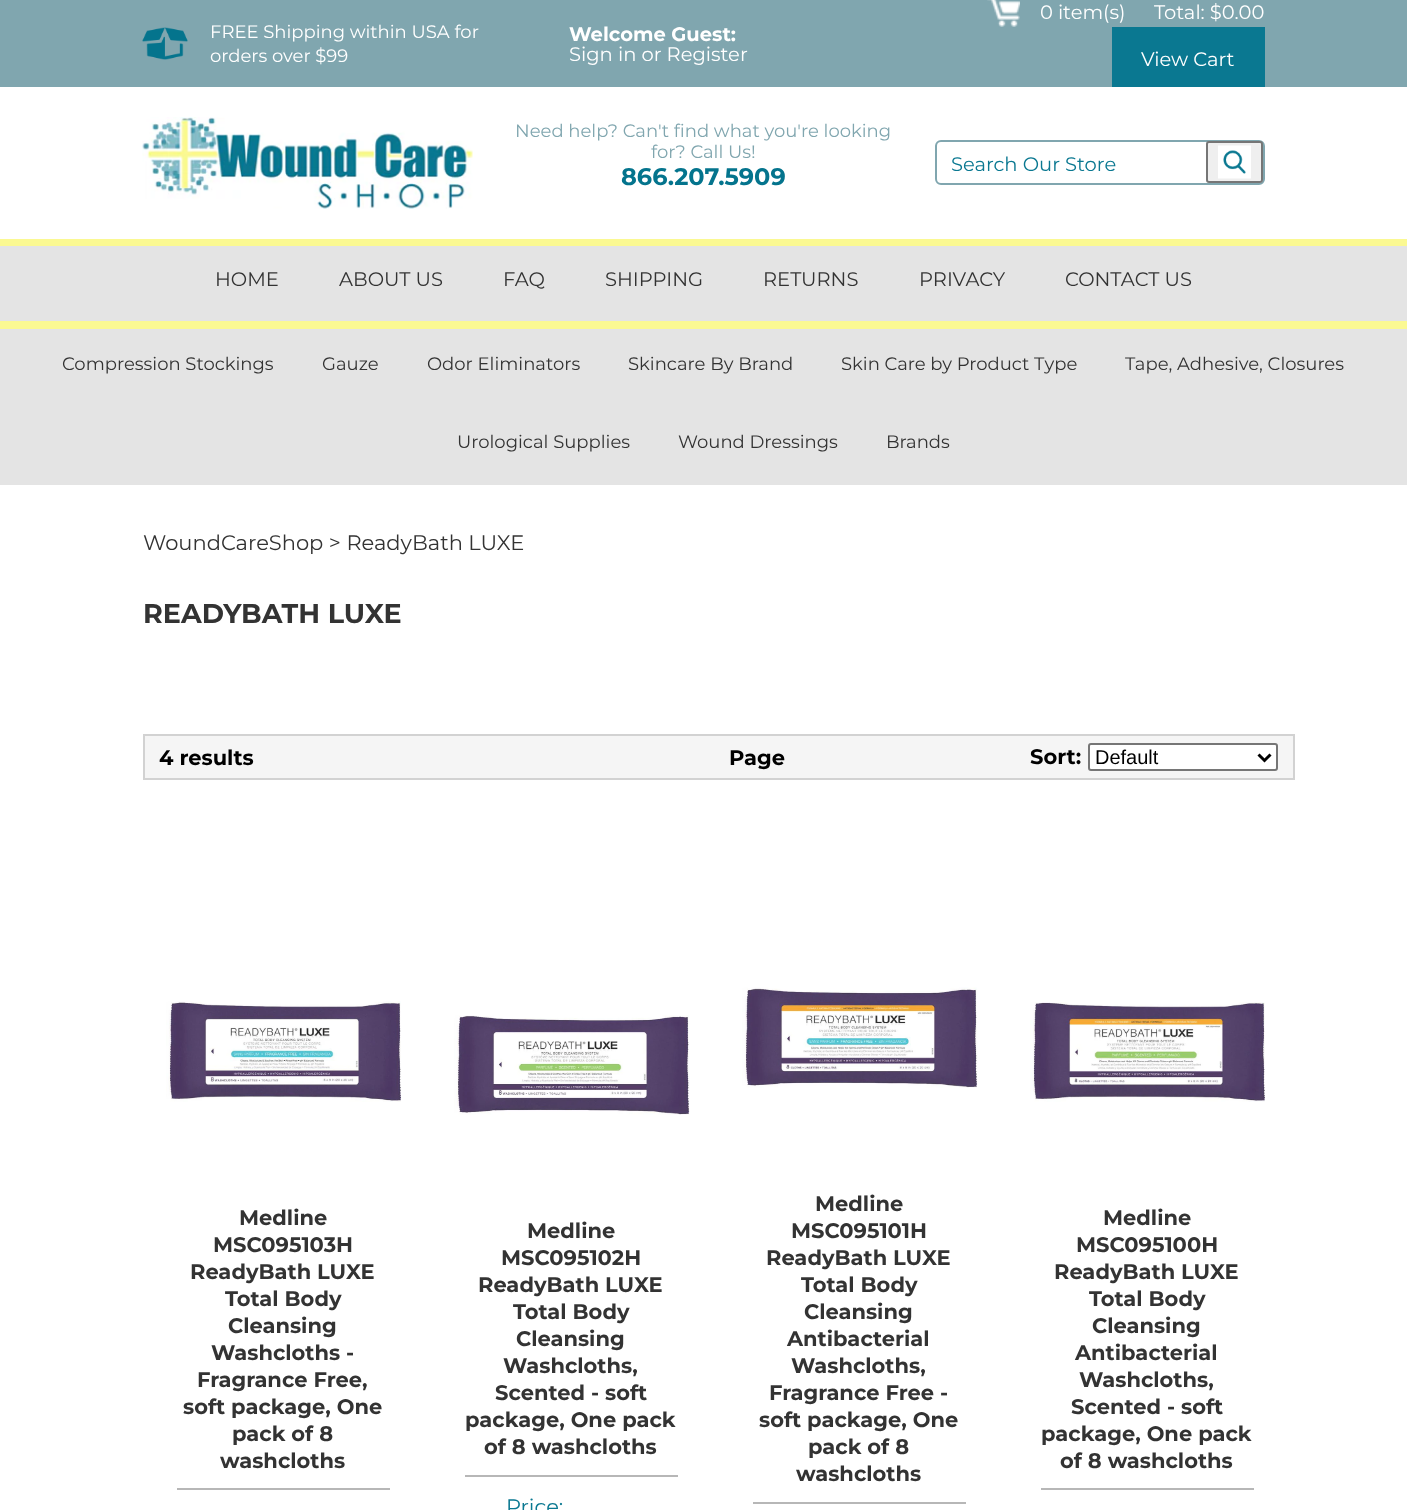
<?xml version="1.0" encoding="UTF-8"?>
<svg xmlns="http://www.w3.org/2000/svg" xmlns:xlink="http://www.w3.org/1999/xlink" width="1407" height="1510">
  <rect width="100%" height="100%" fill="#ffffff" />
  <rect width="1407" height="87" fill="#80a6af" />
  <image x="142" y="27" width="46" height="33" xlink:href="image1.png" />
  <image x="987" y="0" width="33" height="27" xlink:href="image2.png" />
  <rect x="1112" y="27" width="153" height="60" fill="#0a7891" />
  <image x="142" y="117" width="331" height="92" xlink:href="image3.png" />
  <rect x="936" y="141" width="328" height="43" rx="5" fill="none" stroke="#80a6af" stroke-width="2" />
  <rect x="1207" y="142" width="55" height="40" rx="2" fill="#efefef" stroke="#767676" stroke-width="2" />
  <image x="1218" y="145" width="33" height="34" xlink:href="image4.png" />
  <rect y="246" width="1407" height="75" fill="#e4e4e4" />
  <rect y="239" width="1407" height="7" fill="#fbf992" />
  <rect y="329" width="1407" height="156" fill="#e4e4e4" />
  <rect y="321" width="1407" height="8" fill="#fbf992" />
  <rect x="144" y="735" width="1150" height="44" fill="#f5f5f5" stroke="#d2d2d2" stroke-width="2" />
  <rect x="1089" y="744" width="188" height="26" rx="2" fill="#ffffff" stroke="#767676" stroke-width="2" />
  <path d="M 1258.5 754.5 l 6 6 l 6 -6" fill="none" stroke="#000000" stroke-width="3" />
  <image x="166" y="1001" width="235" height="101" xlink:href="image5.png" />
  <rect x="177" y="1488" width="213" height="2" fill="#b7b7b7" />
  <image x="454" y="1015" width="236" height="100" xlink:href="image6.png" />
  <rect x="465" y="1475" width="213" height="2" fill="#b7b7b7" />
  <image x="742" y="987" width="236" height="101" xlink:href="image7.png" />
  <rect x="753" y="1502" width="213" height="2" fill="#b7b7b7" />
  <image x="1030" y="1002" width="235" height="100" xlink:href="image8.png" />
  <rect x="1041" y="1488" width="213" height="2" fill="#b7b7b7" />
  <text x="210" y="38" style="font-family: Montserrat; font-size: 18px; fill: #ffffff">FREE Shipping within USA for</text>
  <text x="210" y="62" style="font-family: Montserrat; font-size: 18px; fill: #ffffff">orders over $99</text>
  <text x="569" y="41" style="font-family: Montserrat; font-size: 19.5px; font-weight: bold; fill: #ffffff">Welcome Guest:</text>
  <text x="569" y="61" style="font-family: Montserrat; font-size: 19.5px; fill: #ffffff">Sign in or Register</text>
  <text x="1040" y="19" style="font-family: Montserrat; font-size: 19.5px; fill: #ffffff">0 item(s)</text>
  <text x="1154" y="19" style="font-family: Montserrat; font-size: 19.5px; fill: #ffffff">Total: $0.00</text>
  <text x="1141" y="66" style="font-family: Montserrat; font-size: 19.5px; fill: #ffffff">View Cart</text>
  <text x="515" y="137" style="font-family: Montserrat; font-size: 18px; fill: #80a6af">Need help? Can't find what you're looking</text>
  <text x="651" y="158" style="font-family: Montserrat; font-size: 18px; fill: #80a6af">for? Call Us!</text>
  <text x="621" y="185" style="font-family: Montserrat; font-size: 24px; font-weight: bold; fill: #04748d">866.207.5909</text>
  <text x="951" y="171" style="font-family: Montserrat; font-size: 19.5px; fill: #0a7891">Search Our Store</text>
  <text x="215" y="286" style="font-family: Montserrat; font-size: 19.5px; fill: #333333">HOME</text>
  <text x="339" y="286" style="font-family: Montserrat; font-size: 19.5px; fill: #333333">ABOUT US</text>
  <text x="503" y="286" style="font-family: Montserrat; font-size: 19.5px; fill: #333333">FAQ</text>
  <text x="605" y="286" style="font-family: Montserrat; font-size: 19.5px; fill: #333333">SHIPPING</text>
  <text x="763" y="286" style="font-family: Montserrat; font-size: 19.5px; fill: #333333">RETURNS</text>
  <text x="919" y="286" style="font-family: Montserrat; font-size: 19.5px; fill: #333333">PRIVACY</text>
  <text x="1065" y="286" style="font-family: Montserrat; font-size: 19.5px; fill: #333333">CONTACT US</text>
  <text x="62" y="370" style="font-family: Montserrat; font-size: 18px; fill: #333333">Compression Stockings</text>
  <text x="322" y="370" style="font-family: Montserrat; font-size: 18px; fill: #333333">Gauze</text>
  <text x="427" y="370" style="font-family: Montserrat; font-size: 18px; fill: #333333">Odor Eliminators</text>
  <text x="628" y="370" style="font-family: Montserrat; font-size: 18px; fill: #333333">Skincare By Brand</text>
  <text x="841" y="370" style="font-family: Montserrat; font-size: 18px; fill: #333333">Skin Care by Product Type</text>
  <text x="1125" y="370" style="font-family: Montserrat; font-size: 18px; fill: #333333">Tape, Adhesive, Closures</text>
  <text x="457" y="448" style="font-family: Montserrat; font-size: 18px; fill: #333333">Urological Supplies</text>
  <text x="678" y="448" style="font-family: Montserrat; font-size: 18px; fill: #333333">Wound Dressings</text>
  <text x="886" y="448" style="font-family: Montserrat; font-size: 18px; fill: #333333">Brands</text>
  <text x="143" y="550" style="font-family: Montserrat; font-size: 21px; fill: #333333">WoundCareShop &gt; ReadyBath LUXE</text>
  <text x="143" y="623" style="font-family: Montserrat; font-size: 27px; font-weight: bold; fill: #333333">READYBATH LUXE</text>
  <text x="159" y="765" style="font-family: Montserrat; font-size: 21px; font-weight: bold; fill: #000000">4 results</text>
  <text x="729" y="765" style="font-family: Montserrat; font-size: 21px; font-weight: bold; fill: #000000">Page</text>
  <text x="1030" y="764" style="font-family: Montserrat; font-size: 21px; font-weight: bold; fill: #000000">Sort:</text>
  <text x="1095" y="764" style="font-family: Liberation Sans; font-size: 20px; fill: #000000">Default</text>
  <text x="239" y="1225" style="font-family: Montserrat; font-size: 21px; font-weight: bold; fill: #333333">Medline</text>
  <text x="213" y="1252" style="font-family: Montserrat; font-size: 21px; font-weight: bold; fill: #333333">MSC095103H</text>
  <text x="190" y="1279" style="font-family: Montserrat; font-size: 21px; font-weight: bold; fill: #333333">ReadyBath LUXE</text>
  <text x="225" y="1306" style="font-family: Montserrat; font-size: 21px; font-weight: bold; fill: #333333">Total Body</text>
  <text x="228" y="1333" style="font-family: Montserrat; font-size: 21px; font-weight: bold; fill: #333333">Cleansing</text>
  <text x="211" y="1360" style="font-family: Montserrat; font-size: 21px; font-weight: bold; fill: #333333">Washcloths -</text>
  <text x="197" y="1387" style="font-family: Montserrat; font-size: 21px; font-weight: bold; fill: #333333">Fragrance Free,</text>
  <text x="183" y="1414" style="font-family: Montserrat; font-size: 21px; font-weight: bold; fill: #333333">soft package, One</text>
  <text x="232" y="1441" style="font-family: Montserrat; font-size: 21px; font-weight: bold; fill: #333333">pack of 8</text>
  <text x="220" y="1468" style="font-family: Montserrat; font-size: 21px; font-weight: bold; fill: #333333">washcloths</text>
  <text x="527" y="1238" style="font-family: Montserrat; font-size: 21px; font-weight: bold; fill: #333333">Medline</text>
  <text x="501" y="1265" style="font-family: Montserrat; font-size: 21px; font-weight: bold; fill: #333333">MSC095102H</text>
  <text x="478" y="1292" style="font-family: Montserrat; font-size: 21px; font-weight: bold; fill: #333333">ReadyBath LUXE</text>
  <text x="513" y="1319" style="font-family: Montserrat; font-size: 21px; font-weight: bold; fill: #333333">Total Body</text>
  <text x="516" y="1346" style="font-family: Montserrat; font-size: 21px; font-weight: bold; fill: #333333">Cleansing</text>
  <text x="503" y="1373" style="font-family: Montserrat; font-size: 21px; font-weight: bold; fill: #333333">Washcloths,</text>
  <text x="495" y="1400" style="font-family: Montserrat; font-size: 21px; font-weight: bold; fill: #333333">Scented - soft</text>
  <text x="465" y="1427" style="font-family: Montserrat; font-size: 21px; font-weight: bold; fill: #333333">package, One pack</text>
  <text x="484" y="1454" style="font-family: Montserrat; font-size: 21px; font-weight: bold; fill: #333333">of 8 washcloths</text>
  <text x="506" y="1514" style="font-family: Montserrat; font-size: 21px; fill: #0a7891">Price:</text>
  <text x="815" y="1211" style="font-family: Montserrat; font-size: 21px; font-weight: bold; fill: #333333">Medline</text>
  <text x="791" y="1238" style="font-family: Montserrat; font-size: 21px; font-weight: bold; fill: #333333">MSC095101H</text>
  <text x="766" y="1265" style="font-family: Montserrat; font-size: 21px; font-weight: bold; fill: #333333">ReadyBath LUXE</text>
  <text x="801" y="1292" style="font-family: Montserrat; font-size: 21px; font-weight: bold; fill: #333333">Total Body</text>
  <text x="804" y="1319" style="font-family: Montserrat; font-size: 21px; font-weight: bold; fill: #333333">Cleansing</text>
  <text x="787" y="1346" style="font-family: Montserrat; font-size: 21px; font-weight: bold; fill: #333333">Antibacterial</text>
  <text x="791" y="1373" style="font-family: Montserrat; font-size: 21px; font-weight: bold; fill: #333333">Washcloths,</text>
  <text x="769" y="1400" style="font-family: Montserrat; font-size: 21px; font-weight: bold; fill: #333333">Fragrance Free -</text>
  <text x="759" y="1427" style="font-family: Montserrat; font-size: 21px; font-weight: bold; fill: #333333">soft package, One</text>
  <text x="808" y="1454" style="font-family: Montserrat; font-size: 21px; font-weight: bold; fill: #333333">pack of 8</text>
  <text x="796" y="1481" style="font-family: Montserrat; font-size: 21px; font-weight: bold; fill: #333333">washcloths</text>
  <text x="1103" y="1225" style="font-family: Montserrat; font-size: 21px; font-weight: bold; fill: #333333">Medline</text>
  <text x="1076" y="1252" style="font-family: Montserrat; font-size: 21px; font-weight: bold; fill: #333333">MSC095100H</text>
  <text x="1054" y="1279" style="font-family: Montserrat; font-size: 21px; font-weight: bold; fill: #333333">ReadyBath LUXE</text>
  <text x="1089" y="1306" style="font-family: Montserrat; font-size: 21px; font-weight: bold; fill: #333333">Total Body</text>
  <text x="1092" y="1333" style="font-family: Montserrat; font-size: 21px; font-weight: bold; fill: #333333">Cleansing</text>
  <text x="1075" y="1360" style="font-family: Montserrat; font-size: 21px; font-weight: bold; fill: #333333">Antibacterial</text>
  <text x="1079" y="1387" style="font-family: Montserrat; font-size: 21px; font-weight: bold; fill: #333333">Washcloths,</text>
  <text x="1071" y="1414" style="font-family: Montserrat; font-size: 21px; font-weight: bold; fill: #333333">Scented - soft</text>
  <text x="1041" y="1441" style="font-family: Montserrat; font-size: 21px; font-weight: bold; fill: #333333">package, One pack</text>
  <text x="1060" y="1468" style="font-family: Montserrat; font-size: 21px; font-weight: bold; fill: #333333">of 8 washcloths</text>
</svg>
